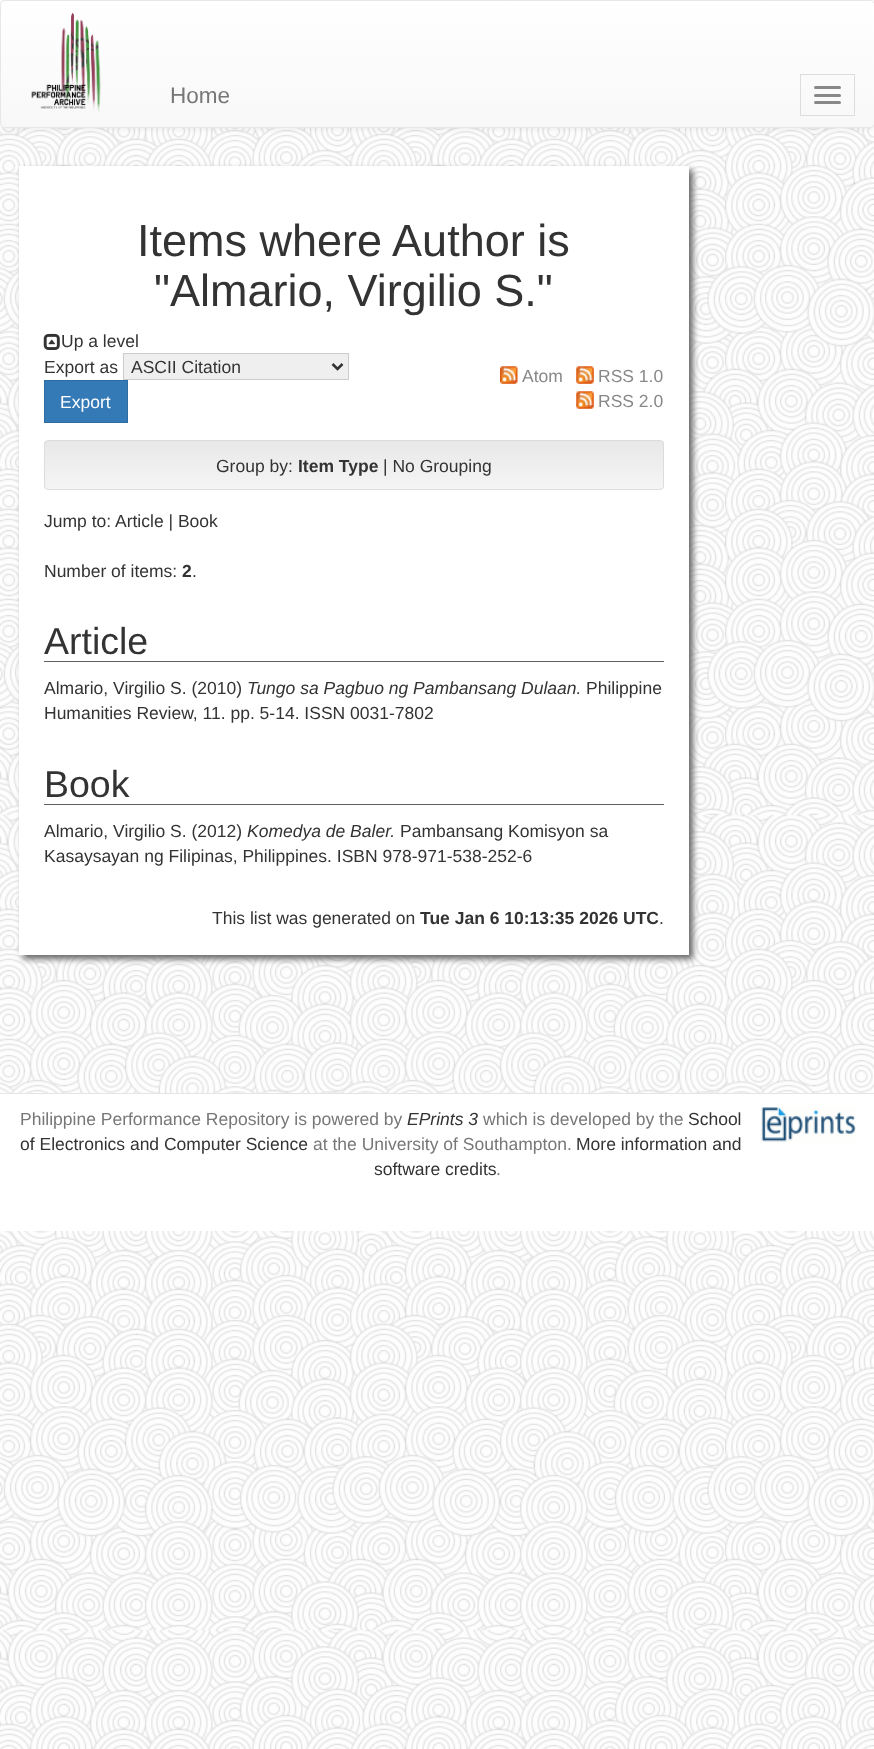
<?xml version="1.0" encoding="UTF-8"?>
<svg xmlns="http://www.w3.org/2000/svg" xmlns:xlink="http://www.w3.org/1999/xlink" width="874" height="1749">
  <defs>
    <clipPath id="clip1"><rect width="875" height="128" rx="5" /></clipPath>
    <linearGradient id="g1" gradientUnits="userSpaceOnUse" x1="438" y1="1.2" x2="438" y2="126"><stop offset="0" stop-color="#ffffff" /><stop offset="1" stop-color="#f8f8f8" /></linearGradient>
    <clipPath id="clip2"><rect x="44" y="440" width="620" height="50" rx="4" /></clipPath>
    <linearGradient id="g2" gradientUnits="userSpaceOnUse" x1="354" y1="441" x2="354" y2="489"><stop offset="0" stop-color="#e8e8e8" /><stop offset="1" stop-color="#f5f5f5" /></linearGradient>
  </defs>
  <rect width="100%" height="100%" fill="#ffffff" />
  <image x="0" y="0" width="874" height="1749" xlink:href="image1.png" />
  <rect y="1" width="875" height="128" rx="5" fill="#000000" fill-opacity="0.07" filter="blur(3px)" />
  <rect width="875" height="128" rx="5" fill="#f8f8f8" />
  <g clip-path="url(#clip1)">
    <rect y="1" width="874" height="125" fill="url(#g1)" />
  </g>
  <rect x="0.5" y="0.5" width="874" height="127" rx="4.5" fill="none" stroke="#e7e7e7" />
  <image x="31" y="12" width="70" height="101" xlink:href="image2.png" />
  <rect x="800.5" y="74.5" width="54" height="41" fill="none" stroke="#dddddd" />
  <rect x="814" y="86" width="27" height="3" rx="1.5" fill="#888888" />
  <rect x="814" y="94" width="27" height="3" rx="1.5" fill="#888888" />
  <rect x="814" y="101" width="27" height="3" rx="1.5" fill="#888888" />
  <rect x="23" y="170" width="670" height="789" fill="#666666" filter="blur(3px)" />
  <rect x="19" y="166" width="670" height="789" fill="#ffffff" />
  <image x="43" y="333" width="17" height="17" xlink:href="image3.png" />
  <rect x="123.5" y="353.5" width="225" height="26" fill="#efefef" stroke="#cccccc" />
  <path d="M 332.5 364 l 5 5 l 5 -5" fill="none" stroke="#333333" stroke-width="2.5" />
  <rect x="44.5" y="380.5" width="83" height="42" fill="#337ab7" stroke="#2e6da4" />
  <image x="500" y="366" width="18" height="18" xlink:href="image4.png" />
  <image x="576" y="366" width="18" height="18" xlink:href="image5.png" />
  <image x="576" y="391" width="18" height="18" xlink:href="image5.png" />
  <g clip-path="url(#clip2)">
    <rect x="44" y="441" width="620" height="48" fill="url(#g2)" />
  </g>
  <rect x="44.5" y="440.5" width="619" height="49" rx="3.5" fill="none" stroke="#dcdcdc" />
  <rect x="44" y="661" width="620" height="1" fill="#606060" />
  <rect x="44" y="804" width="620" height="1" fill="#606060" />
  <rect y="1094" width="874" height="137" fill="#ffffff" />
  <rect y="1093" width="874" height="1" fill="#e5e5e5" />
  <image x="760" y="1107" width="96" height="36" xlink:href="image6.png" />
  <text x="170" y="103" style="font-family: Liberation Sans; font-size: 22.5px; fill: #777777">Home</text>
  <text x="137" y="256" style="font-family: Liberation Sans; font-size: 45px; fill: #333333">Items where Author is</text>
  <text x="154" y="306" style="font-family: Liberation Sans; font-size: 45px; fill: #333333">"Almario, Virgilio S."</text>
  <text x="61" y="347" style="font-family: Liberation Sans; font-size: 17.5px; fill: #333333">Up a level</text>
  <text x="44" y="373" style="font-family: Liberation Sans; font-size: 17.5px; fill: #333333">Export as</text>
  <text x="131" y="373" style="font-family: Liberation Sans; font-size: 17.5px; fill: #333333">ASCII Citation</text>
  <text x="60" y="408" style="font-family: Liberation Sans; font-size: 17.5px; fill: #ffffff">Export</text>
  <text x="522" y="382" style="font-family: Liberation Sans; font-size: 17.5px; fill: #888888">Atom</text>
  <text x="598" y="382" style="font-family: Liberation Sans; font-size: 17.5px; fill: #888888">RSS 1.0</text>
  <text x="598" y="407" style="font-family: Liberation Sans; font-size: 17.5px; fill: #888888">RSS 2.0</text>
  <text x="216" y="472" style="font-family: Liberation Sans; font-size: 17.5px; fill: #333333">Group by:</text>
  <text x="298" y="472" style="font-family: Liberation Sans; font-size: 17.5px; font-weight: bold; fill: #333333">Item Type</text>
  <text x="383" y="472" style="font-family: Liberation Sans; font-size: 17.5px; fill: #333333">| No Grouping</text>
  <text x="44" y="527" style="font-family: Liberation Sans; font-size: 17.5px; fill: #333333">Jump to:</text>
  <text x="115" y="527" style="font-family: Liberation Sans; font-size: 17.5px; fill: #333333">Article | Book</text>
  <text x="44" y="577" style="font-family: Liberation Sans; font-size: 17.5px; fill: #333333">Number of items:</text>
  <text x="182" y="577" style="font-family: Liberation Sans; font-size: 17.5px; font-weight: bold; fill: #333333">2</text>
  <text x="192" y="577" style="font-family: Liberation Sans; font-size: 17.5px; fill: #333333">.</text>
  <text x="44" y="654" style="font-family: Liberation Sans; font-size: 37.5px; fill: #333333">Article</text>
  <text x="44" y="694" style="font-family: Liberation Sans; font-size: 17.5px; fill: #333333">Almario, Virgilio S. (2010)</text>
  <text x="247" y="694" style="font-family: Liberation Sans; font-size: 17.5px; font-style: italic; fill: #333333">Tungo sa Pagbuo ng Pambansang Dulaan.</text>
  <text x="586" y="694" style="font-family: Liberation Sans; font-size: 17.5px; fill: #333333">Philippine</text>
  <text x="44" y="719" style="font-family: Liberation Sans; font-size: 17.5px; fill: #333333">Humanities Review, 11. pp. 5-14. ISSN 0031-7802</text>
  <text x="44" y="797" style="font-family: Liberation Sans; font-size: 37.5px; fill: #333333">Book</text>
  <text x="44" y="837" style="font-family: Liberation Sans; font-size: 17.5px; fill: #333333">Almario, Virgilio S. (2012)</text>
  <text x="247" y="837" style="font-family: Liberation Sans; font-size: 17.5px; font-style: italic; fill: #333333">Komedya de Baler.</text>
  <text x="400" y="837" style="font-family: Liberation Sans; font-size: 17.5px; fill: #333333">Pambansang Komisyon sa</text>
  <text x="44" y="862" style="font-family: Liberation Sans; font-size: 17.5px; fill: #333333">Kasaysayan ng Filipinas, Philippines. ISBN 978-971-538-252-6</text>
  <text x="212" y="924" style="font-family: Liberation Sans; font-size: 17.5px; fill: #333333">This list was generated on</text>
  <text x="420" y="924" style="font-family: Liberation Sans; font-size: 17.5px; font-weight: bold; fill: #333333">Tue Jan 6 10:13:35 2026 UTC</text>
  <text x="659" y="924" style="font-family: Liberation Sans; font-size: 17.5px; fill: #333333">.</text>
  <text x="20" y="1125" style="font-family: Liberation Sans; font-size: 17.5px; fill: #777777">Philippine Performance Repository is powered by</text>
  <text x="407" y="1125" style="font-family: Liberation Sans; font-size: 17.5px; font-style: italic; fill: #333333">EPrints 3</text>
  <text x="483" y="1125" style="font-family: Liberation Sans; font-size: 17.5px; fill: #777777">which is developed by the</text>
  <text x="688" y="1125" style="font-family: Liberation Sans; font-size: 17.5px; fill: #333333">School</text>
  <text x="20" y="1150" style="font-family: Liberation Sans; font-size: 17.5px; fill: #333333">of Electronics and Computer Science</text>
  <text x="313" y="1150" style="font-family: Liberation Sans; font-size: 17.5px; fill: #777777">at the University of Southampton.</text>
  <text x="576" y="1150" style="font-family: Liberation Sans; font-size: 17.5px; fill: #333333">More information and</text>
  <text x="374" y="1175" style="font-family: Liberation Sans; font-size: 17.5px; fill: #333333">software credits</text>
  <text x="496" y="1175" style="font-family: Liberation Sans; font-size: 17.5px; fill: #777777">.</text>
</svg>
